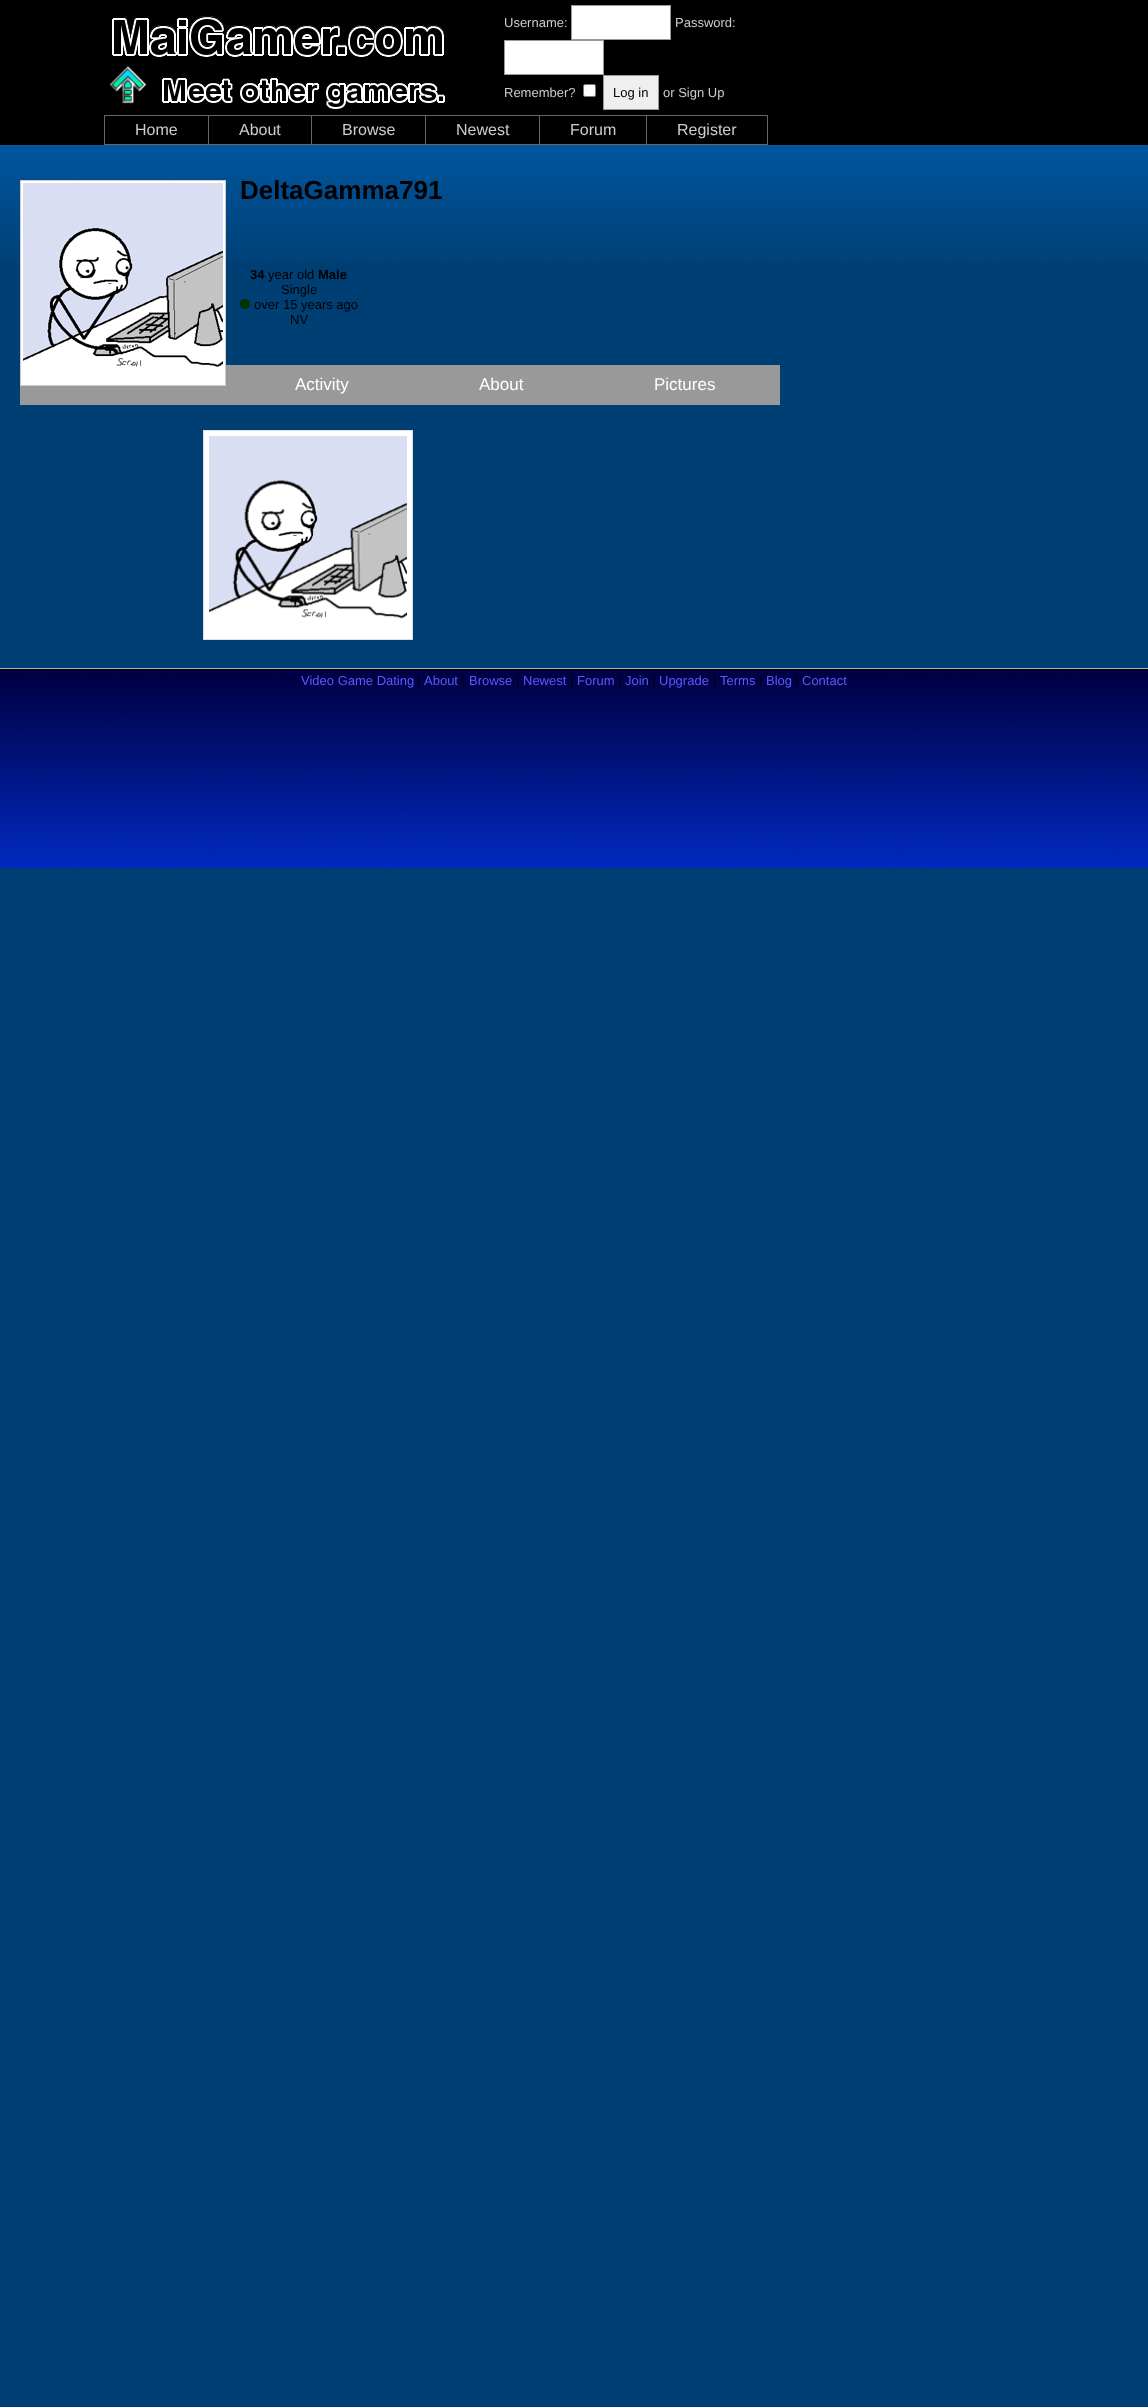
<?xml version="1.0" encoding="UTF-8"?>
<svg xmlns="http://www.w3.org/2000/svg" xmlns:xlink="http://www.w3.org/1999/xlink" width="1148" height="2407">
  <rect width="100%" height="100%" fill="#003f74" />
  <image x="0" y="145" width="1148" height="117" xlink:href="image1.png" />
  <rect width="1148" height="145" fill="#000000" />
  <image x="109" y="16" width="336" height="93" xlink:href="image2.png" />
  <rect x="571.5" y="5.5" width="99" height="34" fill="#ffffff" stroke="#999999" />
  <rect x="504.5" y="40.5" width="99" height="34" fill="#ffffff" stroke="#999999" />
  <rect x="583.5" y="84.5" width="12" height="12" rx="1.5" fill="#ffffff" stroke="#767676" />
  <rect x="603.5" y="75.5" width="55" height="34" fill="#efefef" stroke="#999999" />
  <rect x="104.5" y="115.5" width="104" height="29" fill="none" stroke="#666666" />
  <rect x="209" y="115" width="559" height="1" fill="#666666" />
  <rect x="311" y="115" width="1" height="30" fill="#666666" />
  <rect x="209" y="144" width="103" height="1" fill="#666666" />
  <rect x="425" y="115" width="1" height="30" fill="#666666" />
  <rect x="312" y="144" width="114" height="1" fill="#666666" />
  <rect x="539" y="115" width="1" height="30" fill="#666666" />
  <rect x="426" y="144" width="114" height="1" fill="#666666" />
  <rect x="646" y="115" width="1" height="30" fill="#666666" />
  <rect x="540" y="144" width="107" height="1" fill="#666666" />
  <rect x="767" y="115" width="1" height="30" fill="#666666" />
  <rect x="647" y="144" width="121" height="1" fill="#666666" />
  <rect x="20" y="365" width="760" height="40" fill="#999999" />
  <rect x="20.5" y="180.5" width="205" height="205" fill="#ffffff" stroke="#cccccc" />
  <image x="23" y="183" width="200" height="184" xlink:href="image3.png" />
  <circle cx="245" cy="304" r="5" fill="#003300" />
  <rect x="203.5" y="430.5" width="209" height="209" fill="#ffffff" stroke="#e0e0e0" />
  <image x="209" y="436" width="198" height="183" xlink:href="image4.png" />
  <image x="0" y="668" width="1148" height="200" xlink:href="image5.png" />
  <text x="504" y="27" style="font-family: Liberation Sans; font-size: 13px; fill: #cccccc">Username:</text>
  <text x="675" y="27" style="font-family: Liberation Sans; font-size: 13px; fill: #cccccc">Password:</text>
  <text x="504" y="97" style="font-family: Liberation Sans; font-size: 13px; fill: #cccccc">Remember?</text>
  <text x="613" y="97" style="font-family: Liberation Sans; font-size: 13px; fill: #000000">Log in</text>
  <text x="663" y="97" style="font-family: Liberation Sans; font-size: 13px; fill: #cccccc">or Sign Up</text>
  <text x="135" y="135" style="font-family: Liberation Sans; font-size: 16px; fill: #cccccc">Home</text>
  <text x="239" y="135" style="font-family: Liberation Sans; font-size: 16px; fill: #cccccc">About</text>
  <text x="342" y="135" style="font-family: Liberation Sans; font-size: 16px; fill: #cccccc">Browse</text>
  <text x="456" y="135" style="font-family: Liberation Sans; font-size: 16px; fill: #cccccc">Newest</text>
  <text x="570" y="135" style="font-family: Liberation Sans; font-size: 16px; fill: #cccccc">Forum</text>
  <text x="677" y="135" style="font-family: Liberation Sans; font-size: 16px; fill: #cccccc">Register</text>
  <text x="240" y="199" style="font-family: Liberation Sans; font-size: 26px; font-weight: bold; fill: #000000">DeltaGamma791</text>
  <text x="250" y="279" style="font-family: Liberation Sans; font-size: 13px; font-weight: bold; fill: #000000">34</text>
  <text x="268" y="279" style="font-family: Liberation Sans; font-size: 13px; fill: #000000">year old</text>
  <text x="318" y="279" style="font-family: Liberation Sans; font-size: 13px; font-weight: bold; fill: #000000">Male</text>
  <text x="281" y="294" style="font-family: Liberation Sans; font-size: 13px; fill: #000000">Single</text>
  <text x="254" y="309" style="font-family: Liberation Sans; font-size: 13px; fill: #000000">over 15 years ago</text>
  <text x="290" y="324" style="font-family: Liberation Sans; font-size: 13px; fill: #000000">NV</text>
  <text x="295" y="390" style="font-family: Liberation Sans; font-size: 17px; fill: #ffffff">Activity</text>
  <text x="479" y="390" style="font-family: Liberation Sans; font-size: 17px; fill: #ffffff">About</text>
  <text x="654" y="390" style="font-family: Liberation Sans; font-size: 17px; fill: #ffffff">Pictures</text>
  <text x="301" y="685" style="font-family: Liberation Sans; font-size: 13px; fill: #5a5aff">Video Game Dating</text>
  <text x="417" y="685" style="font-family: Liberation Sans; font-size: 13px; fill: #000000">|</text>
  <text x="424" y="685" style="font-family: Liberation Sans; font-size: 13px; fill: #5a5aff">About</text>
  <text x="462" y="685" style="font-family: Liberation Sans; font-size: 13px; fill: #000000">|</text>
  <text x="469" y="685" style="font-family: Liberation Sans; font-size: 13px; fill: #5a5aff">Browse</text>
  <text x="516" y="685" style="font-family: Liberation Sans; font-size: 13px; fill: #000000">|</text>
  <text x="523" y="685" style="font-family: Liberation Sans; font-size: 13px; fill: #5a5aff">Newest</text>
  <text x="570" y="685" style="font-family: Liberation Sans; font-size: 13px; fill: #000000">|</text>
  <text x="577" y="685" style="font-family: Liberation Sans; font-size: 13px; fill: #5a5aff">Forum</text>
  <text x="618" y="685" style="font-family: Liberation Sans; font-size: 13px; fill: #000000">|</text>
  <text x="625" y="685" style="font-family: Liberation Sans; font-size: 13px; fill: #5a5aff">Join</text>
  <text x="652" y="685" style="font-family: Liberation Sans; font-size: 13px; fill: #000000">|</text>
  <text x="659" y="685" style="font-family: Liberation Sans; font-size: 13px; fill: #5a5aff">Upgrade</text>
  <text x="713" y="685" style="font-family: Liberation Sans; font-size: 13px; fill: #000000">|</text>
  <text x="720" y="685" style="font-family: Liberation Sans; font-size: 13px; fill: #5a5aff">Terms</text>
  <text x="759" y="685" style="font-family: Liberation Sans; font-size: 13px; fill: #000000">|</text>
  <text x="766" y="685" style="font-family: Liberation Sans; font-size: 13px; fill: #5a5aff">Blog</text>
  <text x="795" y="685" style="font-family: Liberation Sans; font-size: 13px; fill: #000000">|</text>
  <text x="802" y="685" style="font-family: Liberation Sans; font-size: 13px; fill: #5a5aff">Contact</text>
</svg>
